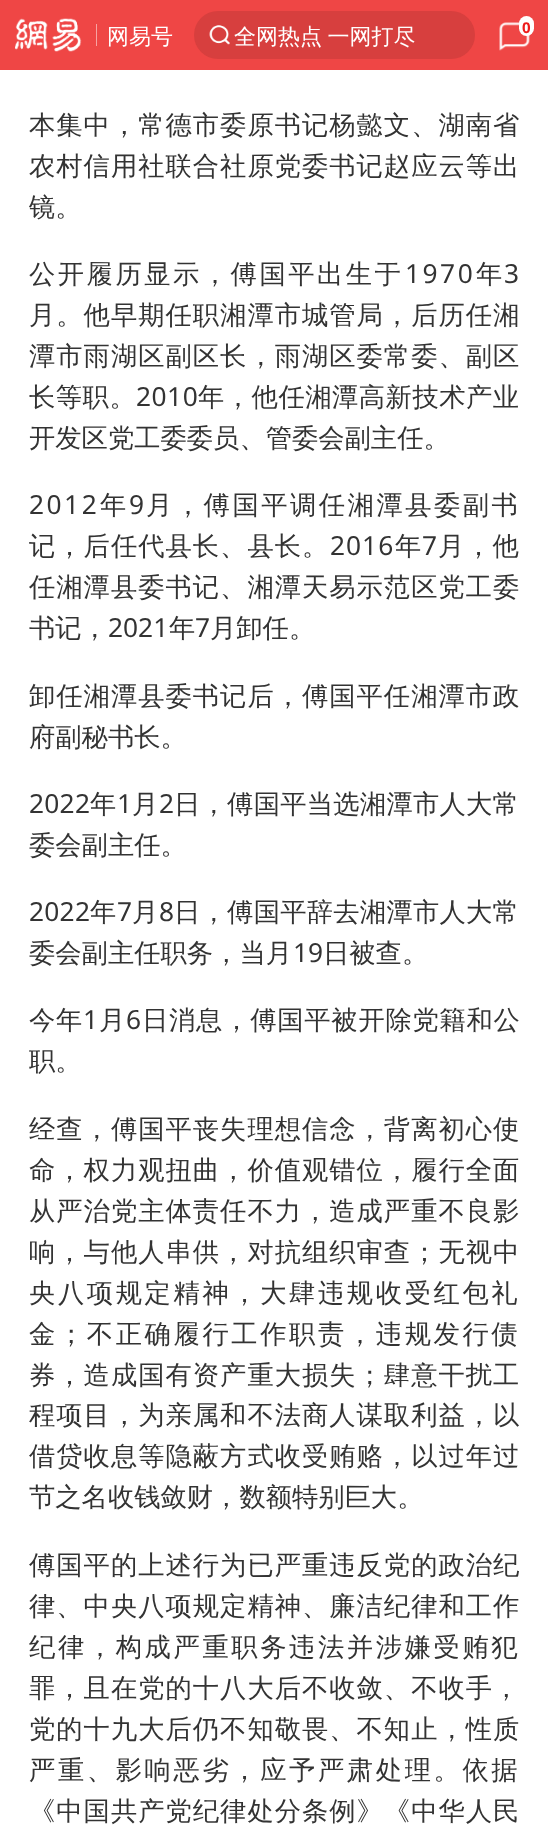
<?xml version="1.0" encoding="UTF-8"?>
<svg xmlns="http://www.w3.org/2000/svg" xmlns:xlink="http://www.w3.org/1999/xlink" width="548" height="1827">
  <rect width="100%" height="100%" fill="#ffffff" />
  <rect width="548" height="70" fill="#ef4645" />
  <image x="15" y="18" width="67" height="34" xlink:href="image1.png" />
  <rect x="96" y="24" width="1" height="22" fill="#f7a3a2" />
  <rect x="194" y="11" width="281" height="48" rx="24" fill="#d73f3e" />
  <image x="209" y="25" width="21" height="20" xlink:href="image2.png" />
  <image x="499" y="22" width="31" height="29" xlink:href="image3.png" />
  <rect x="519" y="16" width="15" height="20" rx="7.5" fill="#ffffff" />
  <text x="107" y="44" style="font-family: WenQuanYi Zen Hei; font-size: 22px; font-weight: 500; fill: #ffffff">网易号</text>
  <text x="234" y="44" word-spacing="-1" style="font-family: WenQuanYi Zen Hei; font-size: 22px; font-weight: 500; fill: #ffffff">全网热点 一网打尽</text>
  <text x="522" y="33" style="font-family: Noto Sans; font-size: 15px; font-weight: bold; fill: #ee1a1a">0</text>
  <text x="29" y="134" style="font-family: WenQuanYi Zen Hei; font-size: 26.3px; font-weight: 500; letter-spacing: 1px; fill: #333333">本集中，常德市委原书记杨懿文、湖南省</text>
  <text x="29" y="175" style="font-family: WenQuanYi Zen Hei; font-size: 26.3px; font-weight: 500; letter-spacing: 1px; fill: #333333">农村信用社联合社原党委书记赵应云等出</text>
  <text x="29" y="216" style="font-family: WenQuanYi Zen Hei; font-size: 26.3px; font-weight: 500; fill: #333333">镜。</text>
  <text x="29" y="283" style="font-family: WenQuanYi Zen Hei; font-size: 26.3px; font-weight: 500; letter-spacing: 2.5px; fill: #333333">公开履历显示，傅国平出生于</text>
  <text x="405" y="283" style="font-family: Noto Sans; font-size: 26.3px; letter-spacing: 2.5px; fill: #333333">1970</text>
  <text x="476" y="283" style="font-family: WenQuanYi Zen Hei; font-size: 26.3px; font-weight: 500; letter-spacing: 2.5px; fill: #333333">年</text>
  <text x="504" y="283" style="font-family: Noto Sans; font-size: 26.3px; letter-spacing: 2.5px; fill: #333333">3</text>
  <text x="29" y="324" style="font-family: WenQuanYi Zen Hei; font-size: 26.3px; font-weight: 500; letter-spacing: 1px; fill: #333333">月。他早期任职湘潭市城管局，后历任湘</text>
  <text x="29" y="365" style="font-family: WenQuanYi Zen Hei; font-size: 26.3px; font-weight: 500; letter-spacing: 1px; fill: #333333">潭市雨湖区副区长，雨湖区委常委、副区</text>
  <text x="29" y="406" style="font-family: WenQuanYi Zen Hei; font-size: 26.3px; font-weight: 500; letter-spacing: 0.5px; fill: #333333">长等职。</text>
  <text x="136" y="406" style="font-family: Noto Sans; font-size: 26.3px; letter-spacing: 0.5px; fill: #333333">2010</text>
  <text x="198" y="406" style="font-family: WenQuanYi Zen Hei; font-size: 26.3px; font-weight: 500; letter-spacing: 0.5px; fill: #333333">年，他任湘潭高新技术产业</text>
  <text x="29" y="447" style="font-family: WenQuanYi Zen Hei; font-size: 26.3px; font-weight: 500; fill: #333333">开发区党工委委员、管委会副主任。</text>
  <text x="29" y="514" style="font-family: Noto Sans; font-size: 26.3px; letter-spacing: 2.5px; fill: #333333">2012</text>
  <text x="100" y="514" style="font-family: WenQuanYi Zen Hei; font-size: 26.3px; font-weight: 500; letter-spacing: 2.5px; fill: #333333">年</text>
  <text x="129" y="514" style="font-family: Noto Sans; font-size: 26.3px; letter-spacing: 2.5px; fill: #333333">9</text>
  <text x="146" y="514" style="font-family: WenQuanYi Zen Hei; font-size: 26.3px; font-weight: 500; letter-spacing: 2.5px; fill: #333333">月，傅国平调任湘潭县委副书</text>
  <text x="29" y="555" style="font-family: WenQuanYi Zen Hei; font-size: 26.3px; font-weight: 500; letter-spacing: 1px; fill: #333333">记，后任代县长、县长。</text>
  <text x="330" y="555" style="font-family: Noto Sans; font-size: 26.3px; letter-spacing: 1px; fill: #333333">2016</text>
  <text x="395" y="555" style="font-family: WenQuanYi Zen Hei; font-size: 26.3px; font-weight: 500; letter-spacing: 1px; fill: #333333">年</text>
  <text x="422" y="555" style="font-family: Noto Sans; font-size: 26.3px; letter-spacing: 1px; fill: #333333">7</text>
  <text x="438" y="555" style="font-family: WenQuanYi Zen Hei; font-size: 26.3px; font-weight: 500; letter-spacing: 1px; fill: #333333">月，他</text>
  <text x="29" y="596" style="font-family: WenQuanYi Zen Hei; font-size: 26.3px; font-weight: 500; letter-spacing: 1px; fill: #333333">任湘潭县委书记、湘潭天易示范区党工委</text>
  <text x="29" y="637" style="font-family: WenQuanYi Zen Hei; font-size: 26.3px; font-weight: 500; fill: #333333">书记，</text>
  <text x="108" y="637" style="font-family: Noto Sans; font-size: 26.3px; fill: #333333">2021</text>
  <text x="169" y="637" style="font-family: WenQuanYi Zen Hei; font-size: 26.3px; font-weight: 500; fill: #333333">年</text>
  <text x="195" y="637" style="font-family: Noto Sans; font-size: 26.3px; fill: #333333">7</text>
  <text x="210" y="637" style="font-family: WenQuanYi Zen Hei; font-size: 26.3px; font-weight: 500; fill: #333333">月卸任。</text>
  <text x="29" y="705" style="font-family: WenQuanYi Zen Hei; font-size: 26.3px; font-weight: 500; letter-spacing: 1px; fill: #333333">卸任湘潭县委书记后，傅国平任湘潭市政</text>
  <text x="29" y="746" style="font-family: WenQuanYi Zen Hei; font-size: 26.3px; font-weight: 500; fill: #333333">府副秘书长。</text>
  <text x="29" y="813" style="font-family: Noto Sans; font-size: 26.3px; letter-spacing: 0.25px; fill: #333333">2022</text>
  <text x="90" y="813" style="font-family: WenQuanYi Zen Hei; font-size: 26.3px; font-weight: 500; letter-spacing: 0.25px; fill: #333333">年</text>
  <text x="117" y="813" style="font-family: Noto Sans; font-size: 26.3px; letter-spacing: 0.25px; fill: #333333">1</text>
  <text x="132" y="813" style="font-family: WenQuanYi Zen Hei; font-size: 26.3px; font-weight: 500; letter-spacing: 0.25px; fill: #333333">月</text>
  <text x="159" y="813" style="font-family: Noto Sans; font-size: 26.3px; letter-spacing: 0.25px; fill: #333333">2</text>
  <text x="174" y="813" style="font-family: WenQuanYi Zen Hei; font-size: 26.3px; font-weight: 500; letter-spacing: 0.25px; fill: #333333">日，傅国平当选湘潭市人大常</text>
  <text x="29" y="854" style="font-family: WenQuanYi Zen Hei; font-size: 26.3px; font-weight: 500; fill: #333333">委会副主任。</text>
  <text x="29" y="921" style="font-family: Noto Sans; font-size: 26.3px; letter-spacing: 0.25px; fill: #333333">2022</text>
  <text x="90" y="921" style="font-family: WenQuanYi Zen Hei; font-size: 26.3px; font-weight: 500; letter-spacing: 0.25px; fill: #333333">年</text>
  <text x="117" y="921" style="font-family: Noto Sans; font-size: 26.3px; letter-spacing: 0.25px; fill: #333333">7</text>
  <text x="132" y="921" style="font-family: WenQuanYi Zen Hei; font-size: 26.3px; font-weight: 500; letter-spacing: 0.25px; fill: #333333">月</text>
  <text x="159" y="921" style="font-family: Noto Sans; font-size: 26.3px; letter-spacing: 0.25px; fill: #333333">8</text>
  <text x="174" y="921" style="font-family: WenQuanYi Zen Hei; font-size: 26.3px; font-weight: 500; letter-spacing: 0.25px; fill: #333333">日，傅国平辞去湘潭市人大常</text>
  <text x="29" y="962" style="font-family: WenQuanYi Zen Hei; font-size: 26.3px; font-weight: 500; fill: #333333">委会副主任职务，当月</text>
  <text x="293" y="962" style="font-family: Noto Sans; font-size: 26.3px; fill: #333333">19</text>
  <text x="323" y="962" style="font-family: WenQuanYi Zen Hei; font-size: 26.3px; font-weight: 500; fill: #333333">日被查。</text>
  <text x="29" y="1029" style="font-family: WenQuanYi Zen Hei; font-size: 26.3px; font-weight: 500; letter-spacing: 0.75px; fill: #333333">今年</text>
  <text x="83" y="1029" style="font-family: Noto Sans; font-size: 26.3px; letter-spacing: 0.75px; fill: #333333">1</text>
  <text x="99" y="1029" style="font-family: WenQuanYi Zen Hei; font-size: 26.3px; font-weight: 500; letter-spacing: 0.75px; fill: #333333">月</text>
  <text x="126" y="1029" style="font-family: Noto Sans; font-size: 26.3px; letter-spacing: 0.75px; fill: #333333">6</text>
  <text x="142" y="1029" style="font-family: WenQuanYi Zen Hei; font-size: 26.3px; font-weight: 500; letter-spacing: 0.75px; fill: #333333">日消息，傅国平被开除党籍和公</text>
  <text x="29" y="1070" style="font-family: WenQuanYi Zen Hei; font-size: 26.3px; font-weight: 500; fill: #333333">职。</text>
  <text x="29" y="1138" style="font-family: WenQuanYi Zen Hei; font-size: 26.3px; font-weight: 500; letter-spacing: 1px; fill: #333333">经查，傅国平丧失理想信念，背离初心使</text>
  <text x="29" y="1179" style="font-family: WenQuanYi Zen Hei; font-size: 26.3px; font-weight: 500; letter-spacing: 1px; fill: #333333">命，权力观扭曲，价值观错位，履行全面</text>
  <text x="29" y="1220" style="font-family: WenQuanYi Zen Hei; font-size: 26.3px; font-weight: 500; letter-spacing: 1px; fill: #333333">从严治党主体责任不力，造成严重不良影</text>
  <text x="29" y="1261" style="font-family: WenQuanYi Zen Hei; font-size: 26.3px; font-weight: 500; letter-spacing: 1px; fill: #333333">响，与他人串供，对抗组织审查；无视中</text>
  <text x="29" y="1302" style="font-family: WenQuanYi Zen Hei; font-size: 26.3px; font-weight: 500; letter-spacing: 2.6px; fill: #333333">央八项规定精神，大肆违规收受红包礼</text>
  <text x="29" y="1343" style="font-family: WenQuanYi Zen Hei; font-size: 26.3px; font-weight: 500; letter-spacing: 2.6px; fill: #333333">金；不正确履行工作职责，违规发行债</text>
  <text x="29" y="1384" style="font-family: WenQuanYi Zen Hei; font-size: 26.3px; font-weight: 500; letter-spacing: 1px; fill: #333333">券，造成国有资产重大损失；肆意干扰工</text>
  <text x="29" y="1424" style="font-family: WenQuanYi Zen Hei; font-size: 26.3px; font-weight: 500; letter-spacing: 1px; fill: #333333">程项目，为亲属和不法商人谋取利益，以</text>
  <text x="29" y="1465" style="font-family: WenQuanYi Zen Hei; font-size: 26.3px; font-weight: 500; letter-spacing: 1px; fill: #333333">借贷收息等隐蔽方式收受贿赂，以过年过</text>
  <text x="29" y="1506" style="font-family: WenQuanYi Zen Hei; font-size: 26.3px; font-weight: 500; fill: #333333">节之名收钱敛财，数额特别巨大。</text>
  <text x="29" y="1574" style="font-family: WenQuanYi Zen Hei; font-size: 26.3px; font-weight: 500; letter-spacing: 1px; fill: #333333">傅国平的上述行为已严重违反党的政治纪</text>
  <text x="29" y="1615" style="font-family: WenQuanYi Zen Hei; font-size: 26.3px; font-weight: 500; letter-spacing: 1px; fill: #333333">律、中央八项规定精神、廉洁纪律和工作</text>
  <text x="29" y="1656" style="font-family: WenQuanYi Zen Hei; font-size: 26.3px; font-weight: 500; letter-spacing: 2.6px; fill: #333333">纪律，构成严重职务违法并涉嫌受贿犯</text>
  <text x="29" y="1697" style="font-family: WenQuanYi Zen Hei; font-size: 26.3px; font-weight: 500; letter-spacing: 1px; fill: #333333">罪，且在党的十八大后不收敛、不收手，</text>
  <text x="29" y="1738" style="font-family: WenQuanYi Zen Hei; font-size: 26.3px; font-weight: 500; letter-spacing: 1px; fill: #333333">党的十九大后仍不知敬畏、不知止，性质</text>
  <text x="29" y="1779" style="font-family: WenQuanYi Zen Hei; font-size: 26.3px; font-weight: 500; letter-spacing: 2.6px; fill: #333333">严重、影响恶劣，应予严肃处理。依据</text>
  <text x="29" y="1820" style="font-family: WenQuanYi Zen Hei; font-size: 26.3px; font-weight: 500; letter-spacing: 1px; fill: #333333">《中国共产党纪律处分条例》《中华人民</text>
</svg>
